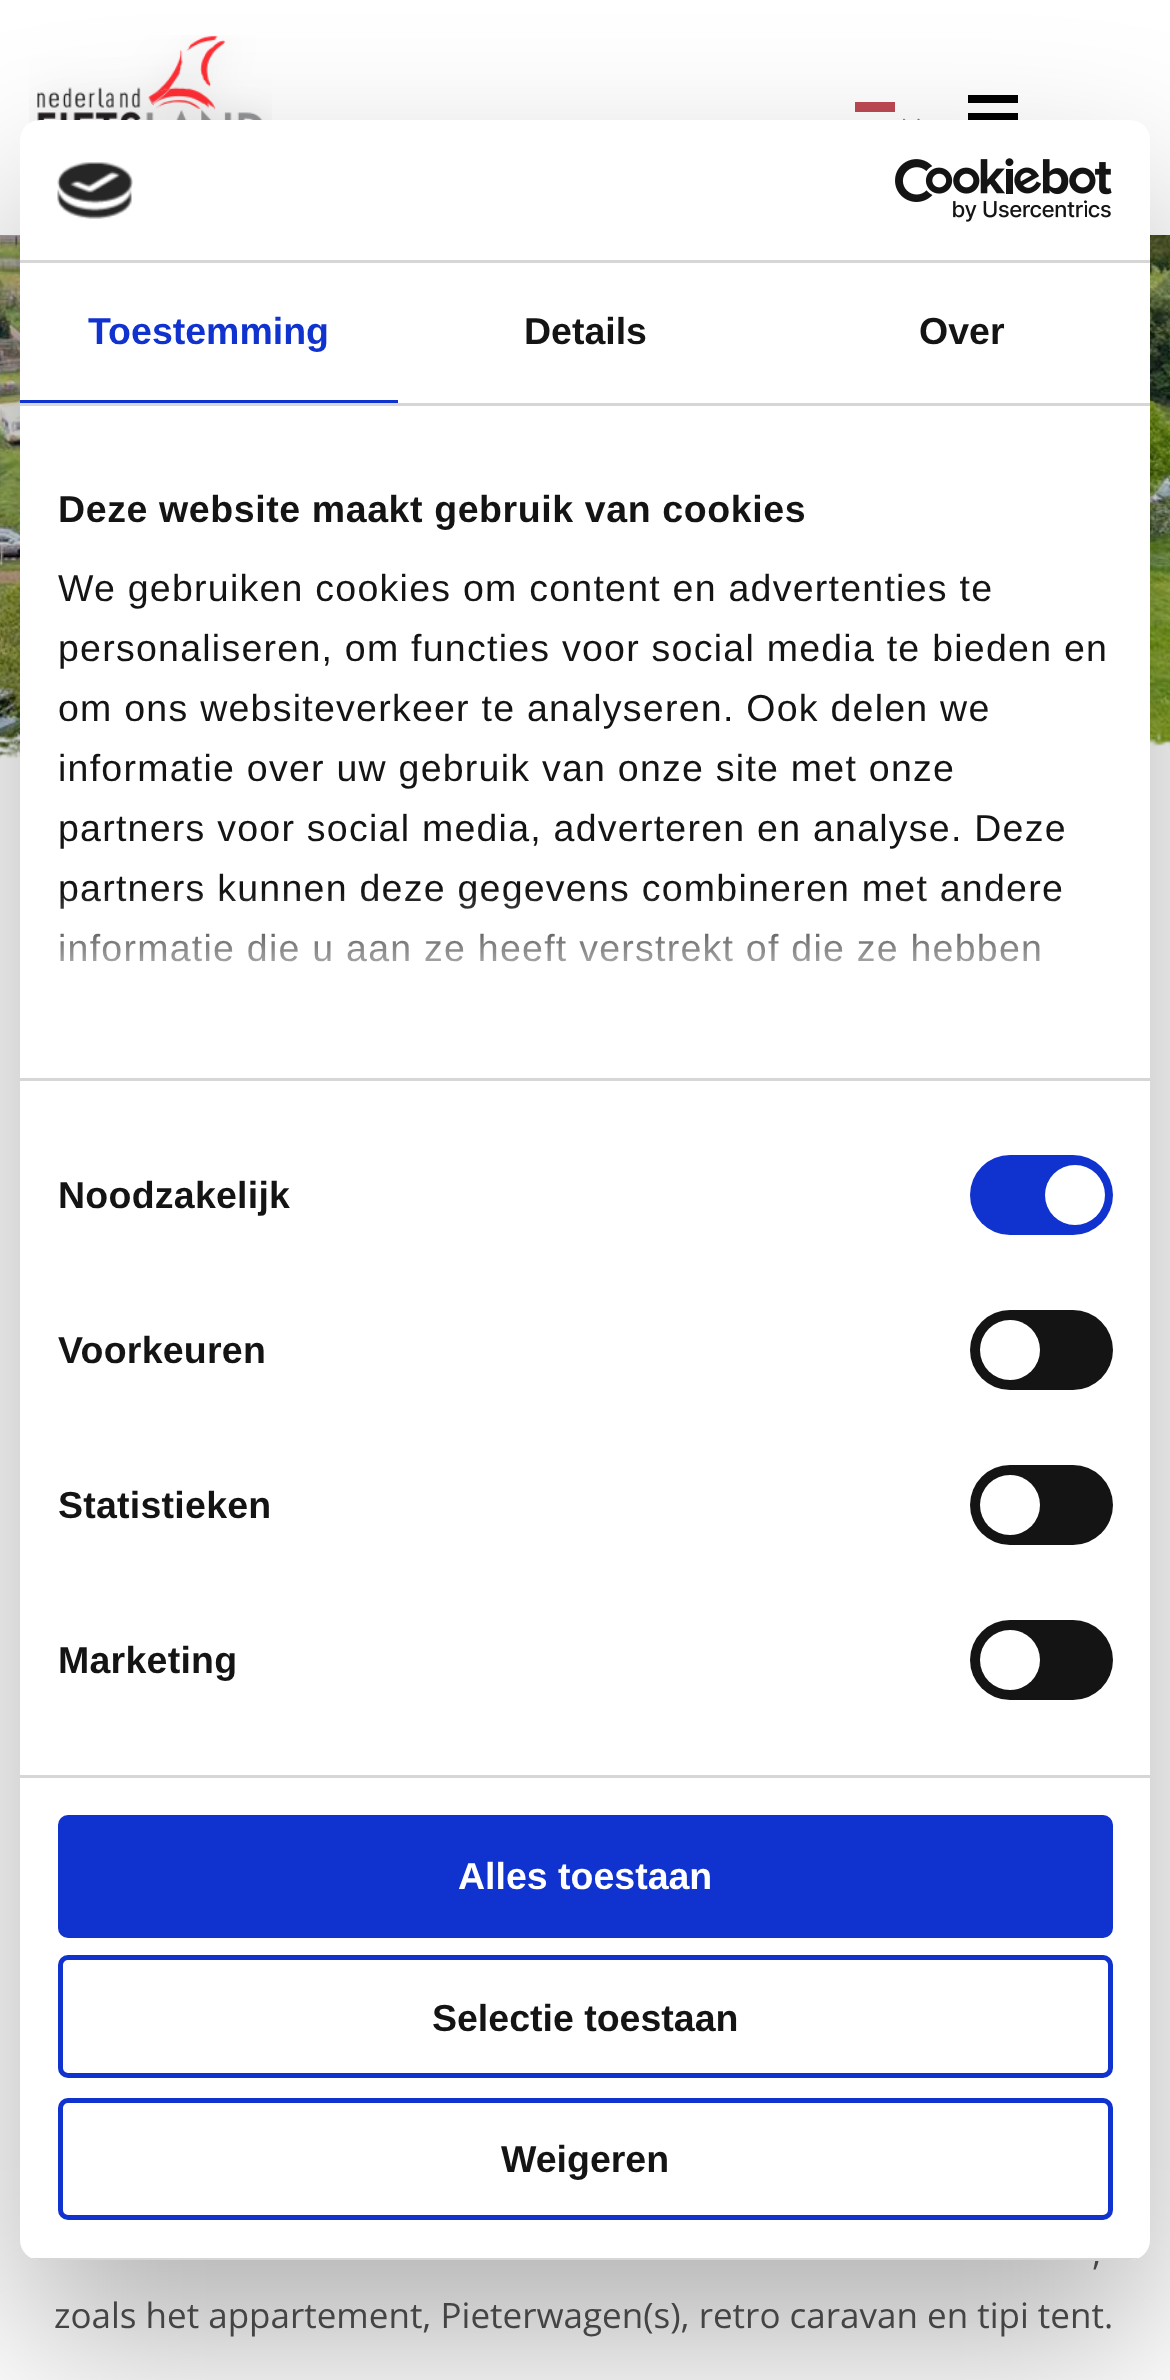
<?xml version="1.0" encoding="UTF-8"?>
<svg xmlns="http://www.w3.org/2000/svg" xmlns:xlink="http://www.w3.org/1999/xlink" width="1170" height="2380">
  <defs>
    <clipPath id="clip1"><rect x="20" y="120" width="1130" height="2140" rx="20" /></clipPath>
    <linearGradient id="g1" gradientUnits="userSpaceOnUse" x1="569" y1="1078" x2="569" y2="891"><stop offset="0" stop-color="#ffffff" /><stop offset="0.5" stop-color="#ffffff" stop-opacity="0.8" /><stop offset="1" stop-color="#ffffff" stop-opacity="0" /></linearGradient>
  </defs>
  <rect width="100%" height="100%" fill="#ffffff" />
  <image x="0" y="235" width="1170" height="524" xlink:href="image5.png" />
  <rect x="-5" y="-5" width="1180" height="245" fill="#000000" fill-opacity="0.16" filter="blur(6px)" />
  <rect width="1170" height="235" fill="#ffffff" />
  <image x="29" y="35" width="243" height="89" xlink:href="image1.png" />
  <rect x="855" y="102" width="40" height="10" fill="#be4953" />
  <image x="903" y="118" width="17" height="2" xlink:href="image2.png" />
  <rect x="968" y="113" width="50" height="7" fill="#000000" />
  <rect x="968" y="95" width="50" height="8" fill="#000000" />
  <image x="0" y="731" width="1170" height="139" xlink:href="image6.png" />
  <rect x="20" y="200" width="1130" height="2140" rx="20" fill="#000000" fill-opacity="0.3" filter="blur(85px)" />
  <rect x="20" y="120" width="1130" height="2140" rx="20" fill="#ffffff" />
  <rect x="20" y="260" width="1130" height="3" fill="#d6d6d6" />
  <image x="57" y="162" width="76" height="57" xlink:href="image3.png" />
  <image x="895" y="158" width="217" height="64" xlink:href="image4.png" />
  <rect x="20" y="403" width="1130" height="3" fill="#d6d6d6" />
  <rect x="20" y="400" width="378" height="3" fill="#1032cf" />
  <rect x="20" y="1078" width="1130" height="3" fill="#d6d6d6" />
  <rect x="20" y="1775" width="1130" height="3" fill="#d6d6d6" />
  <rect x="970" y="1155" width="143" height="80" rx="40" fill="#1032cf" />
  <circle cx="1075" cy="1195" r="30" fill="#ffffff" />
  <rect x="970" y="1310" width="143" height="80" rx="40" fill="#141414" />
  <circle cx="1010" cy="1350" r="30" fill="#ffffff" />
  <rect x="970" y="1465" width="143" height="80" rx="40" fill="#141414" />
  <circle cx="1010" cy="1505" r="30" fill="#ffffff" />
  <rect x="970" y="1620" width="143" height="80" rx="40" fill="#141414" />
  <circle cx="1010" cy="1660" r="30" fill="#ffffff" />
  <g clip-path="url(#clip1)">
    <rect x="31" y="2258" width="1108" height="2" fill="#d6d6d6" />
  </g>
  <rect x="60.5" y="1817.5" width="1050" height="118" rx="7.5" fill="#1032cf" stroke="#1032cf" stroke-width="5" />
  <rect x="60.5" y="1957.5" width="1050" height="118" rx="7.5" fill="none" stroke="#1032cf" stroke-width="5" />
  <rect x="60.5" y="2100.5" width="1050" height="117" rx="7.5" fill="none" stroke="#1032cf" stroke-width="5" />
  <text x="88" y="344" style="font-family: Liberation Sans; font-size: 37.5px; font-weight: bold; fill: #1032cf">Toestemming</text>
  <text x="524" y="344" style="font-family: Liberation Sans; font-size: 37.5px; font-weight: bold; fill: #141414">Details</text>
  <text x="919" y="344" style="font-family: Liberation Sans; font-size: 37.5px; font-weight: bold; fill: #141414">Over</text>
  <text x="58" y="522" style="font-family: Liberation Sans; font-size: 37.5px; font-weight: bold; letter-spacing: 0.6px; fill: #141414">Deze website maakt gebruik van cookies</text>
  <text x="58" y="601" style="font-family: Liberation Sans; font-size: 37.5px; letter-spacing: 1.25px; fill: #141414">We gebruiken cookies om content en advertenties te</text>
  <text x="58" y="661" style="font-family: Liberation Sans; font-size: 37.5px; letter-spacing: 1.25px; fill: #141414">personaliseren, om functies voor social media te bieden en</text>
  <text x="58" y="721" style="font-family: Liberation Sans; font-size: 37.5px; letter-spacing: 1.25px; fill: #141414">om ons websiteverkeer te analyseren. Ook delen we</text>
  <text x="58" y="781" style="font-family: Liberation Sans; font-size: 37.5px; letter-spacing: 1.25px; fill: #141414">informatie over uw gebruik van onze site met onze</text>
  <text x="58" y="841" style="font-family: Liberation Sans; font-size: 37.5px; letter-spacing: 1.25px; fill: #141414">partners voor social media, adverteren en analyse. Deze</text>
  <text x="58" y="901" style="font-family: Liberation Sans; font-size: 37.5px; letter-spacing: 1.25px; fill: #141414">partners kunnen deze gegevens combineren met andere</text>
  <text x="58" y="961" style="font-family: Liberation Sans; font-size: 37.5px; letter-spacing: 1.25px; fill: #141414">informatie die u aan ze heeft verstrekt of die ze hebben</text>
  <rect x="60" y="894" width="1000" height="68" fill="url(#g1)" />
  <text x="58" y="1208" style="font-family: Liberation Sans; font-size: 37.5px; font-weight: bold; letter-spacing: 0.25px; fill: #141414">Noodzakelijk</text>
  <text x="58" y="1363" style="font-family: Liberation Sans; font-size: 37.5px; font-weight: bold; letter-spacing: 0.25px; fill: #141414">Voorkeuren</text>
  <text x="58" y="1518" style="font-family: Liberation Sans; font-size: 37.5px; font-weight: bold; letter-spacing: 0.25px; fill: #141414">Statistieken</text>
  <text x="58" y="1673" style="font-family: Liberation Sans; font-size: 37.5px; font-weight: bold; letter-spacing: 0.25px; fill: #141414">Marketing</text>
  <text x="458" y="1889" style="font-family: Liberation Sans; font-size: 37.5px; font-weight: bold; fill: #ffffff">Alles toestaan</text>
  <text x="432" y="2031" style="font-family: Liberation Sans; font-size: 37.5px; font-weight: bold; fill: #141414">Selectie toestaan</text>
  <text x="501" y="2172" style="font-family: Liberation Sans; font-size: 37.5px; font-weight: bold; fill: #141414">Weigeren</text>
  <text x="1092" y="2265" style="font-family: Open Sans; font-size: 35px; fill: #444444">,</text>
  <text x="54" y="2328" style="font-family: Open Sans; font-size: 35px; fill: #444444">zoals het appartement, Pieterwagen(s), retro caravan en tipi tent.</text>
</svg>
